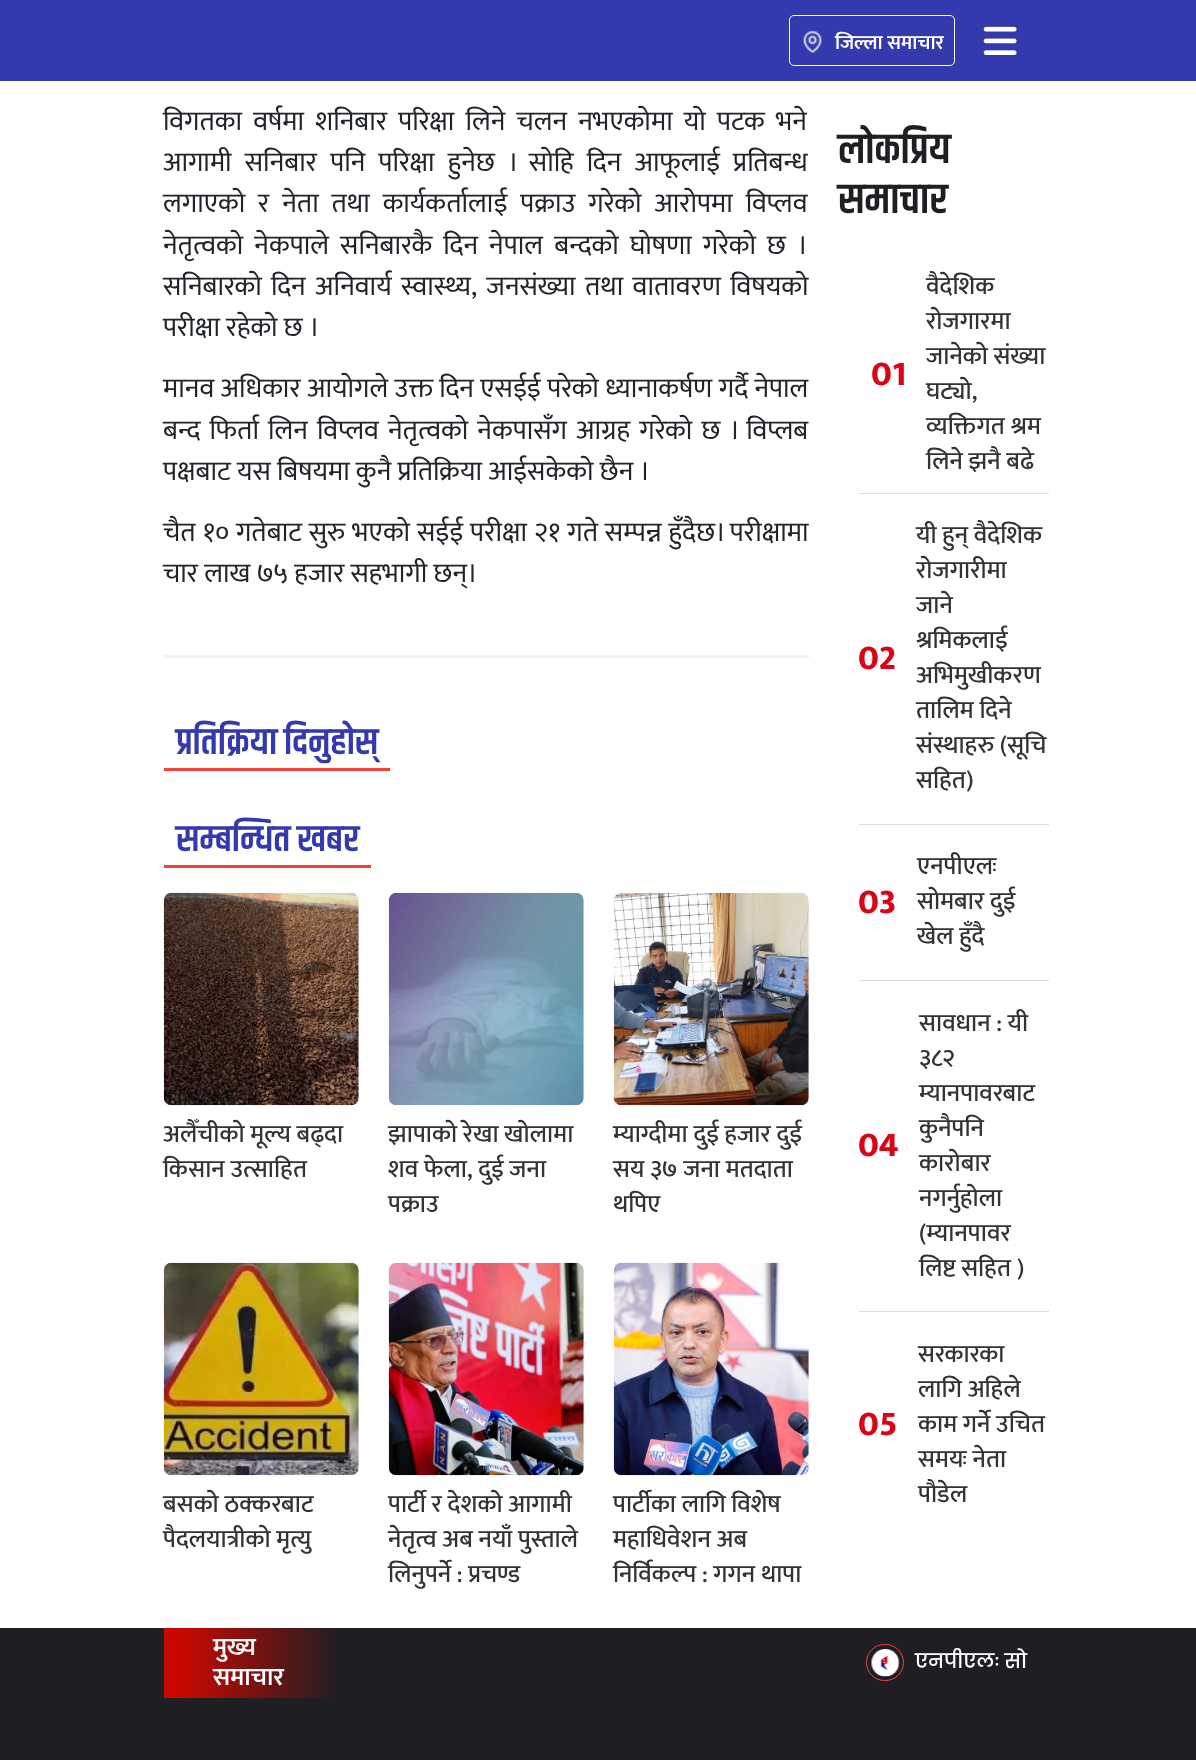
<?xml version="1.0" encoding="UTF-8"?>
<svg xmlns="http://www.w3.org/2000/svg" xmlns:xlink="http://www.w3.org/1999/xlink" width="1196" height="1760">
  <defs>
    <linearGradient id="g1" gradientUnits="userSpaceOnUse" x1="164" y1="1663" x2="339" y2="1663"><stop offset="0.1" stop-color="#c90800" /><stop offset="1" stop-color="#1e1e24" /></linearGradient>
  </defs>
  <rect width="100%" height="100%" fill="#ffffff" />
  <rect width="1196" height="81" fill="#343aad" />
  <rect x="789.5" y="15.5" width="165" height="50" rx="4.5" fill="none" stroke="#ffffff" />
  <image x="803" y="30" width="19" height="23" xlink:href="image1.png" />
  <image x="983" y="26" width="34" height="29" xlink:href="image2.png" />
  <rect x="164" y="655" width="645" height="3" fill="#f1f1f1" />
  <rect x="164" y="768" width="226" height="3" fill="#f34236" />
  <rect x="164" y="865" width="207" height="3" fill="#f34236" />
  <image x="163" y="892" width="196" height="214" xlink:href="image3.png" />
  <image x="388" y="892" width="196" height="214" xlink:href="image4.png" />
  <image x="613" y="892" width="196" height="214" xlink:href="image5.png" />
  <image x="163" y="1262" width="196" height="214" xlink:href="image6.png" />
  <image x="388" y="1262" width="196" height="214" xlink:href="image7.png" />
  <image x="613" y="1262" width="196" height="214" xlink:href="image8.png" />
  <rect x="859" y="493" width="190" height="1" fill="#dedddd" />
  <rect x="859" y="824" width="190" height="1" fill="#dedddd" />
  <rect x="859" y="980" width="190" height="1" fill="#dedddd" />
  <rect x="859" y="1311" width="190" height="1" fill="#dedddd" />
  <rect y="1628" width="1196" height="132" fill="#1f1f23" />
  <rect x="164" y="1628" width="172" height="70" fill="url(#g1)" />
  <rect x="866.5" y="1644.5" width="37" height="36" rx="18" fill="none" stroke="#f34236" />
  <image x="871" y="1649" width="29" height="28" xlink:href="image9.png" />
  <text x="835" y="49" style="font-family: Mukta; font-size: 20px; font-weight: 600; fill: #ffffff">जिल्ला समाचार</text>
  <text x="163" y="130" word-spacing="5" style="font-family: Mukta; font-size: 27.5px; fill: #212529">विगतका वर्षमा शनिबार परिक्षा लिने चलन नभएकोमा यो पटक भने</text>
  <text x="163" y="171" word-spacing="7" style="font-family: Mukta; font-size: 27.5px; fill: #212529">आगामी सनिबार पनि परिक्षा हुनेछ । सोहि दिन आफूलाई प्रतिबन्ध</text>
  <text x="163" y="212" word-spacing="6.75" style="font-family: Mukta; font-size: 27.5px; fill: #212529">लगाएको र नेता तथा कार्यकर्तालाई पक्राउ गरेको आरोपमा विप्लव</text>
  <text x="163" y="254" word-spacing="5" style="font-family: Mukta; font-size: 27.5px; fill: #212529">नेतृत्वको नेकपाले सनिबारकै दिन नेपाल बन्दको घोषणा गरेको छ ।</text>
  <text x="163" y="295" word-spacing="3.25" style="font-family: Mukta; font-size: 27.5px; fill: #212529">सनिबारको दिन अनिवार्य स्वास्थ्य, जनसंख्या तथा वातावरण विषयको</text>
  <text x="163" y="336" style="font-family: Mukta; font-size: 27.5px; fill: #212529">परीक्षा रहेको छ ।</text>
  <text x="163" y="397" word-spacing="0.25" style="font-family: Mukta; font-size: 27.5px; fill: #212529">मानव अधिकार आयोगले उक्त दिन एसईई परेको ध्यानाकर्षण गर्दै नेपाल</text>
  <text x="163" y="439" word-spacing="3" style="font-family: Mukta; font-size: 27.5px; fill: #212529">बन्द फिर्ता लिन विप्लव नेतृत्वको नेकपासँग आग्रह गरेको छ । विप्लब</text>
  <text x="163" y="480" style="font-family: Mukta; font-size: 27.5px; fill: #212529">पक्षबाट यस बिषयमा कुनै प्रतिक्रिया आईसकेको छैन ।</text>
  <text x="163" y="541" word-spacing="0.75" style="font-family: Mukta; font-size: 27.5px; fill: #212529">चैत १० गतेबाट सुरु भएको सईई परीक्षा २१ गते सम्पन्न हुँदैछ। परीक्षामा</text>
  <text x="163" y="582" style="font-family: Mukta; font-size: 27.5px; fill: #212529">चार लाख ७५ हजार सहभागी छन्।</text>
  <text x="176" y="754" style="font-family: Khand; font-size: 37.5px; font-weight: 600; fill: #343aad">प्रतिक्रिया दिनुहोस्</text>
  <text x="176" y="851" style="font-family: Khand; font-size: 37.5px; font-weight: 600; fill: #343aad">सम्बन्धित खबर</text>
  <text x="163" y="1142" style="font-family: Mukta; font-size: 25px; font-weight: 500; fill: #333333">अलैँचीको मूल्य बढ्दा</text>
  <text x="163" y="1177" style="font-family: Mukta; font-size: 25px; font-weight: 500; fill: #333333">किसान उत्साहित</text>
  <text x="388" y="1142" style="font-family: Mukta; font-size: 25px; font-weight: 500; fill: #333333">झापाको रेखा खोलामा</text>
  <text x="388" y="1177" style="font-family: Mukta; font-size: 25px; font-weight: 500; fill: #333333">शव फेला, दुई जना</text>
  <text x="388" y="1212" style="font-family: Mukta; font-size: 25px; font-weight: 500; fill: #333333">पक्राउ</text>
  <text x="613" y="1142" style="font-family: Mukta; font-size: 25px; font-weight: 500; fill: #333333">म्याग्दीमा दुई हजार दुई</text>
  <text x="613" y="1177" style="font-family: Mukta; font-size: 25px; font-weight: 500; fill: #333333">सय ३७ जना मतदाता</text>
  <text x="613" y="1212" style="font-family: Mukta; font-size: 25px; font-weight: 500; fill: #333333">थपिए</text>
  <text x="163" y="1512" style="font-family: Mukta; font-size: 25px; font-weight: 500; fill: #333333">बसको ठक्करबाट</text>
  <text x="163" y="1547" style="font-family: Mukta; font-size: 25px; font-weight: 500; fill: #333333">पैदलयात्रीको मृत्यु</text>
  <text x="388" y="1512" style="font-family: Mukta; font-size: 25px; font-weight: 500; fill: #333333">पार्टी र देशको आगामी</text>
  <text x="388" y="1547" style="font-family: Mukta; font-size: 25px; font-weight: 500; fill: #333333">नेतृत्व अब नयाँ पुस्ताले</text>
  <text x="388" y="1582" style="font-family: Mukta; font-size: 25px; font-weight: 500; fill: #333333">लिनुपर्ने : प्रचण्ड</text>
  <text x="613" y="1512" style="font-family: Mukta; font-size: 25px; font-weight: 500; fill: #333333">पार्टीका लागि विशेष</text>
  <text x="613" y="1547" style="font-family: Mukta; font-size: 25px; font-weight: 500; fill: #333333">महाधिवेशन अब</text>
  <text x="613" y="1582" style="font-family: Mukta; font-size: 25px; font-weight: 500; fill: #333333">निर्विकल्प : गगन थापा</text>
  <text x="838" y="163" style="font-family: Khand; font-size: 42.5px; font-weight: 600; fill: #1f1f23">लोकप्रिय</text>
  <text x="838" y="213" style="font-family: Khand; font-size: 42.5px; font-weight: 600; fill: #1f1f23">समाचार</text>
  <text x="871" y="385" style="font-family: Mukta; font-size: 35px; font-weight: 800; fill: #db0316">01</text>
  <text x="926" y="294" style="font-family: Mukta; font-size: 25px; font-weight: 500; fill: #333333">वैदेशिक</text>
  <text x="926" y="329" style="font-family: Mukta; font-size: 25px; font-weight: 500; fill: #333333">रोजगारमा</text>
  <text x="926" y="364" style="font-family: Mukta; font-size: 25px; font-weight: 500; fill: #333333">जानेको संख्या</text>
  <text x="926" y="399" style="font-family: Mukta; font-size: 25px; font-weight: 500; fill: #333333">घट्यो,</text>
  <text x="926" y="434" style="font-family: Mukta; font-size: 25px; font-weight: 500; fill: #333333">व्यक्तिगत श्रम</text>
  <text x="926" y="469" style="font-family: Mukta; font-size: 25px; font-weight: 500; fill: #333333">लिने झनै बढे</text>
  <text x="858" y="669" style="font-family: Mukta; font-size: 35px; font-weight: 800; fill: #db0316">02</text>
  <text x="916" y="543" style="font-family: Mukta; font-size: 25px; font-weight: 500; fill: #333333">यी हुन् वैदेशिक</text>
  <text x="916" y="578" style="font-family: Mukta; font-size: 25px; font-weight: 500; fill: #333333">रोजगारीमा</text>
  <text x="916" y="613" style="font-family: Mukta; font-size: 25px; font-weight: 500; fill: #333333">जाने</text>
  <text x="916" y="648" style="font-family: Mukta; font-size: 25px; font-weight: 500; fill: #333333">श्रमिकलाई</text>
  <text x="916" y="683" style="font-family: Mukta; font-size: 25px; font-weight: 500; fill: #333333">अभिमुखीकरण</text>
  <text x="916" y="718" style="font-family: Mukta; font-size: 25px; font-weight: 500; fill: #333333">तालिम दिने</text>
  <text x="916" y="753" style="font-family: Mukta; font-size: 25px; font-weight: 500; fill: #333333">संस्थाहरु (सूचि</text>
  <text x="916" y="788" style="font-family: Mukta; font-size: 25px; font-weight: 500; fill: #333333">सहित)</text>
  <text x="858" y="913" style="font-family: Mukta; font-size: 35px; font-weight: 800; fill: #db0316">03</text>
  <text x="917" y="874" style="font-family: Mukta; font-size: 25px; font-weight: 500; fill: #333333">एनपीएलः</text>
  <text x="917" y="909" style="font-family: Mukta; font-size: 25px; font-weight: 500; fill: #333333">सोमबार दुई</text>
  <text x="917" y="944" style="font-family: Mukta; font-size: 25px; font-weight: 500; fill: #333333">खेल हुँदै</text>
  <text x="858" y="1156" style="font-family: Mukta; font-size: 35px; font-weight: 800; fill: #db0316">04</text>
  <text x="919" y="1031" style="font-family: Mukta; font-size: 25px; font-weight: 500; fill: #333333">सावधान : यी</text>
  <text x="919" y="1066" style="font-family: Mukta; font-size: 25px; font-weight: 500; fill: #333333">३८२</text>
  <text x="919" y="1101" style="font-family: Mukta; font-size: 25px; font-weight: 500; fill: #333333">म्यानपावरबाट</text>
  <text x="919" y="1136" style="font-family: Mukta; font-size: 25px; font-weight: 500; fill: #333333">कुनैपनि</text>
  <text x="919" y="1171" style="font-family: Mukta; font-size: 25px; font-weight: 500; fill: #333333">कारोबार</text>
  <text x="919" y="1206" style="font-family: Mukta; font-size: 25px; font-weight: 500; fill: #333333">नगर्नुहोला</text>
  <text x="919" y="1241" style="font-family: Mukta; font-size: 25px; font-weight: 500; fill: #333333">(म्यानपावर</text>
  <text x="919" y="1276" style="font-family: Mukta; font-size: 25px; font-weight: 500; fill: #333333">लिष्ट सहित )</text>
  <text x="858" y="1435" style="font-family: Mukta; font-size: 35px; font-weight: 800; fill: #db0316">05</text>
  <text x="918" y="1362" style="font-family: Mukta; font-size: 25px; font-weight: 500; fill: #333333">सरकारका</text>
  <text x="918" y="1397" style="font-family: Mukta; font-size: 25px; font-weight: 500; fill: #333333">लागि अहिले</text>
  <text x="918" y="1432" style="font-family: Mukta; font-size: 25px; font-weight: 500; fill: #333333">काम गर्ने उचित</text>
  <text x="918" y="1467" style="font-family: Mukta; font-size: 25px; font-weight: 500; fill: #333333">समयः नेता</text>
  <text x="918" y="1502" style="font-family: Mukta; font-size: 25px; font-weight: 500; fill: #333333">पौडेल</text>
  <text x="213" y="1655" style="font-family: Mukta; font-size: 25px; font-weight: 600; fill: #ffffff">मुख्य</text>
  <text x="213" y="1685" style="font-family: Mukta; font-size: 25px; font-weight: 600; fill: #ffffff">समाचार</text>
  <text x="915" y="1668" style="font-family: Poppins; font-size: 20px; font-weight: 500; fill: #ffffff">एनपीएलः सो</text>
</svg>
